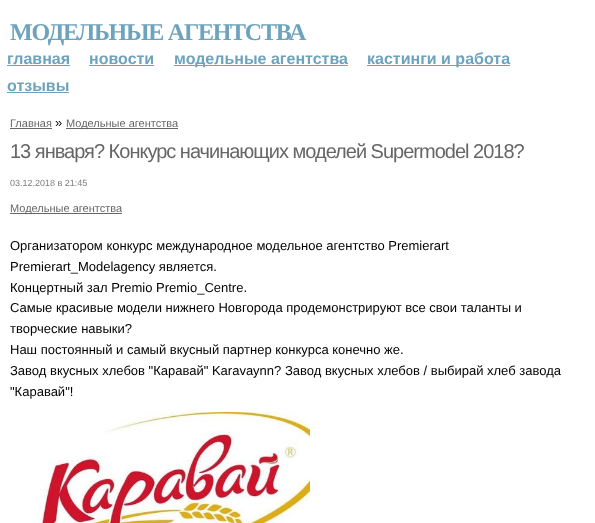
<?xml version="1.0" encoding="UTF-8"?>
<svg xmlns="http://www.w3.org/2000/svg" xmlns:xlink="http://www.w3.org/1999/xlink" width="595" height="523">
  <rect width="100%" height="100%" fill="#ffffff" />
  <rect x="7" y="65" width="63" height="1" fill="#6da3bd" />
  <rect x="89" y="65" width="65" height="1" fill="#6da3bd" />
  <rect x="174" y="65" width="174" height="1" fill="#6da3bd" />
  <rect x="367" y="65" width="143" height="1" fill="#6da3bd" />
  <rect x="7" y="92" width="62" height="1" fill="#6da3bd" />
  <rect x="10" y="128" width="42" height="1" fill="#666666" />
  <rect x="66" y="128" width="112" height="1" fill="#666666" />
  <rect x="10" y="213" width="112" height="1" fill="#666666" />
  <image x="39" y="412" width="271" height="111" xlink:href="image1.png" />
  <text x="10" y="40" style="font-family: Liberation Serif; font-size: 24px; font-weight: bold; letter-spacing: -1.25px; fill: #6da3bd">МОДЕЛЬНЫЕ АГЕНТСТВА</text>
  <text x="7" y="64" style="font-family: Liberation Sans; font-size: 16px; font-weight: bold; fill: #6da3bd">главная</text>
  <text x="89" y="64" style="font-family: Liberation Sans; font-size: 16px; font-weight: bold; fill: #6da3bd">новости</text>
  <text x="174" y="64" style="font-family: Liberation Sans; font-size: 16px; font-weight: bold; fill: #6da3bd">модельные агентства</text>
  <text x="367" y="64" style="font-family: Liberation Sans; font-size: 16px; font-weight: bold; fill: #6da3bd">кастинги и работа</text>
  <text x="7" y="91" style="font-family: Liberation Sans; font-size: 16px; font-weight: bold; fill: #6da3bd">отзывы</text>
  <text x="10" y="127" style="font-family: Liberation Sans; font-size: 11px; fill: #666666">Главная</text>
  <text x="55" y="127" style="font-family: Liberation Sans; font-size: 13px; fill: #000000">»</text>
  <text x="66" y="127" style="font-family: Liberation Sans; font-size: 11px; fill: #666666">Модельные агентства</text>
  <text x="10" y="158" style="font-family: Liberation Sans; font-size: 20px; letter-spacing: -1px; fill: #666666">13 января? Конкурс начинающих моделей Supermodel 2018?</text>
  <text x="10" y="186" style="font-family: Liberation Sans; font-size: 9px; fill: #7e7e7e">03.12.2018 в 21:45</text>
  <text x="10" y="212" style="font-family: Liberation Sans; font-size: 11px; fill: #666666">Модельные агентства</text>
  <text x="10" y="250" style="font-family: Liberation Sans; font-size: 13px; fill: #000000">Организатором конкурс международное модельное агентство Premierart</text>
  <text x="10" y="271" style="font-family: Liberation Sans; font-size: 13px; fill: #000000">Premierart_Modelagency является.</text>
  <text x="10" y="292" style="font-family: Liberation Sans; font-size: 13px; fill: #000000">Концертный зал Premio Premio_Centre.</text>
  <text x="10" y="312" style="font-family: Liberation Sans; font-size: 13px; fill: #000000">Самые красивые модели нижнего Новгорода продемонстрируют все свои таланты и</text>
  <text x="10" y="333" style="font-family: Liberation Sans; font-size: 13px; fill: #000000">творческие навыки?</text>
  <text x="10" y="354" style="font-family: Liberation Sans; font-size: 13px; fill: #000000">Наш постоянный и самый вкусный партнер конкурса конечно же.</text>
  <text x="10" y="375" style="font-family: Liberation Sans; font-size: 13px; fill: #000000">Завод вкусных хлебов "Каравай" Karavaynn? Завод вкусных хлебов / выбирай хлеб завода</text>
  <text x="10" y="396" style="font-family: Liberation Sans; font-size: 13px; fill: #000000">"Каравай"!</text>
</svg>
